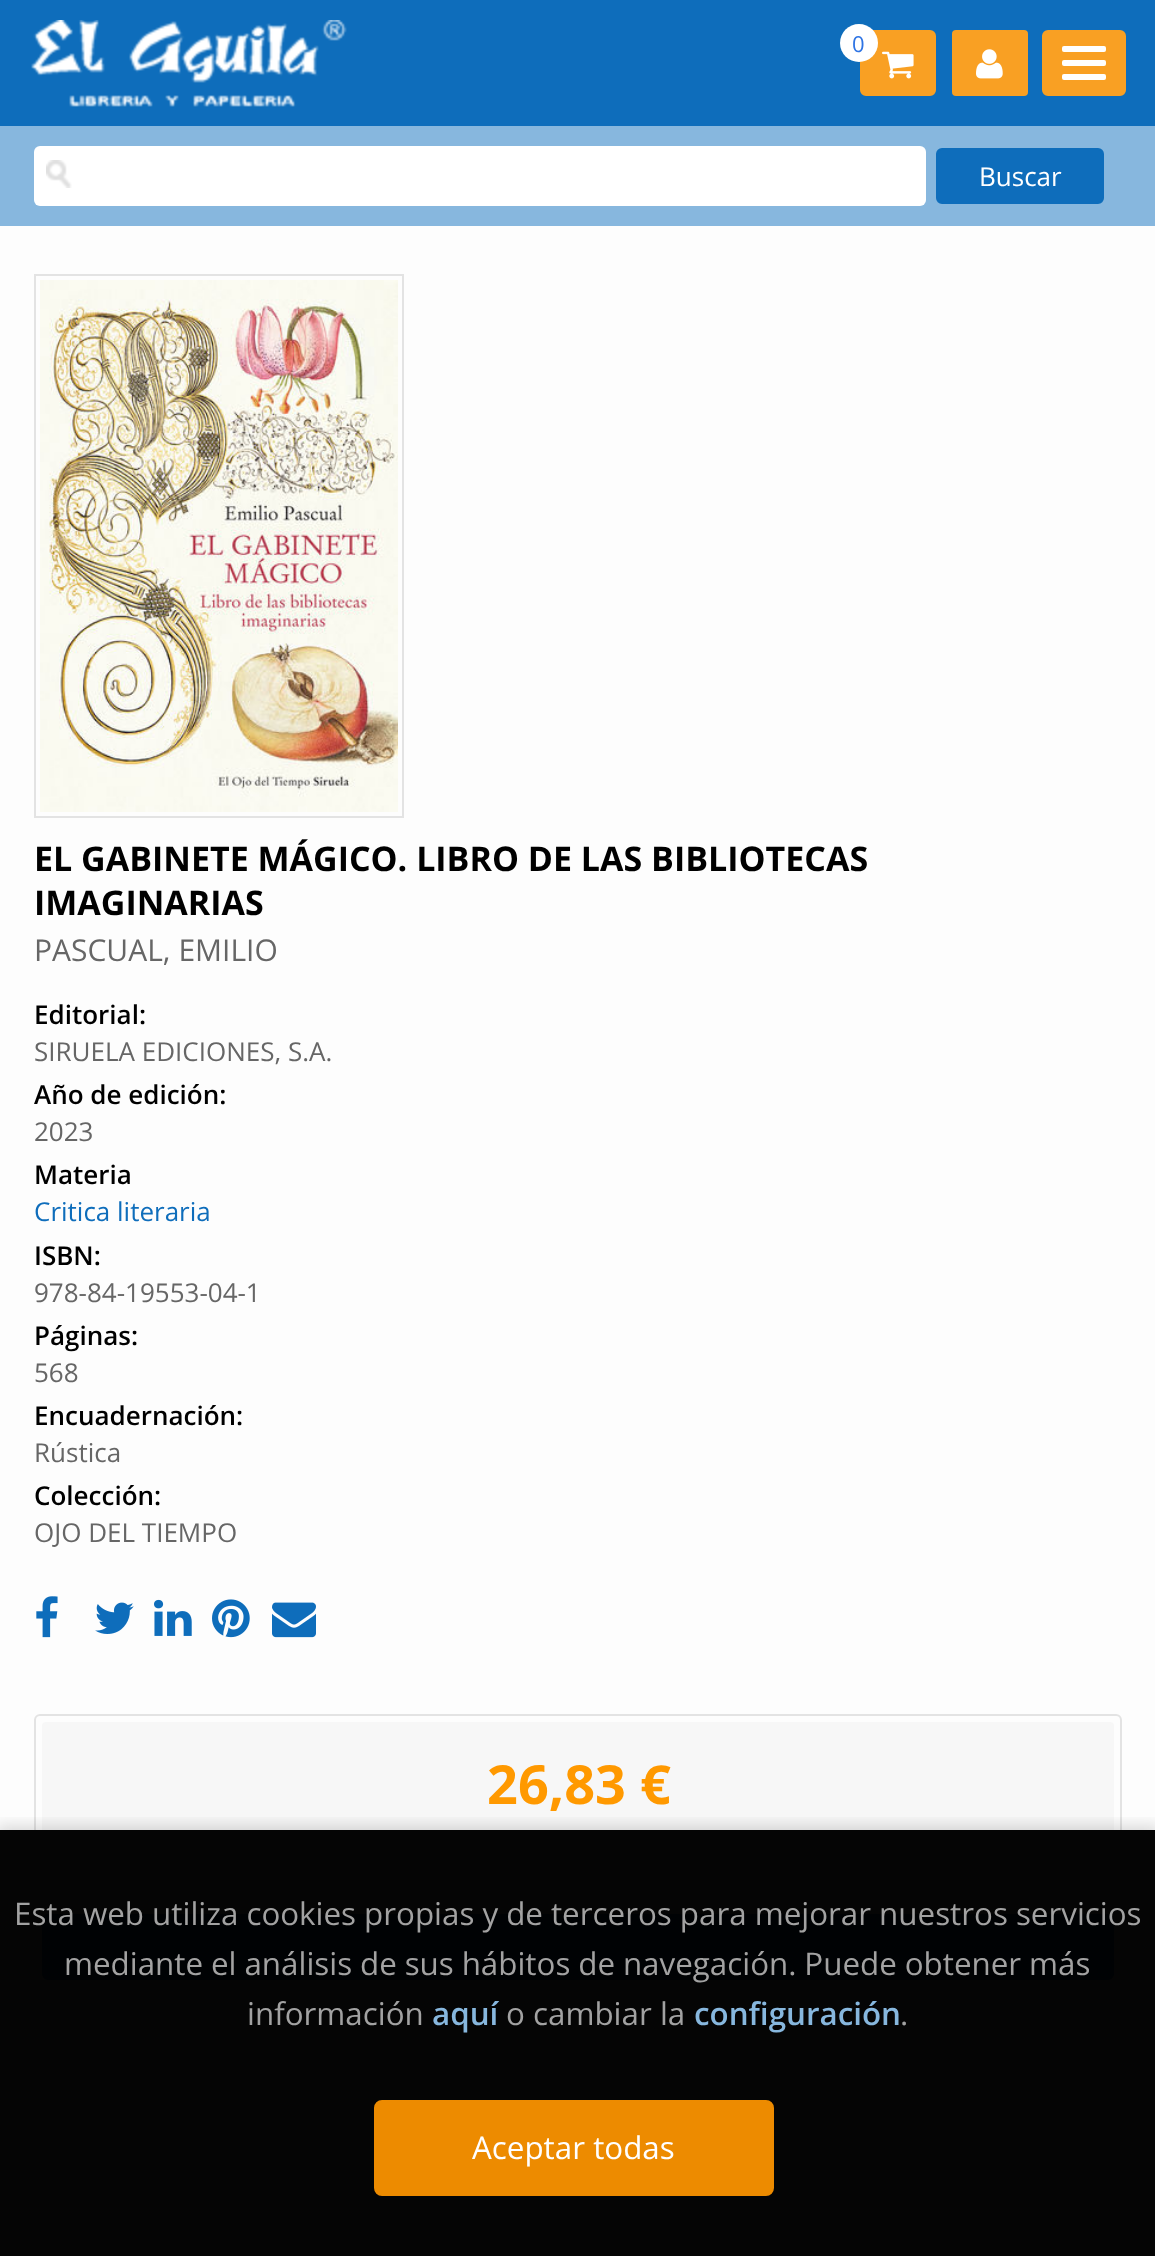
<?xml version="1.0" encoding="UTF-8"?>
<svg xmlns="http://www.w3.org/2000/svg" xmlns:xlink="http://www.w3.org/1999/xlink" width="1155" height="2256">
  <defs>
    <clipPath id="clip1"><rect x="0" y="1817" width="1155" height="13" /></clipPath>
  </defs>
  <rect width="100%" height="100%" fill="#fdfdfd" />
  <rect width="1155" height="126" fill="#0e6dbb" />
  <image x="31" y="20" width="316" height="87" xlink:href="image1.png" />
  <rect x="861" y="31" width="74" height="64" rx="5" fill="#f9a023" stroke="#f9a023" stroke-width="2" />
  <circle cx="859" cy="43" r="19" fill="#ffffff" />
  <image x="882" y="51" width="32" height="28" xlink:href="image2.png" />
  <rect x="952" y="30" width="76" height="66" rx="4" fill="#f9a023" />
  <image x="976" y="49" width="27" height="30" xlink:href="image3.png" />
  <rect x="1043" y="31" width="82" height="64" rx="5" fill="#f9a023" stroke="#f9a023" stroke-width="2" />
  <rect x="1062" y="46" width="44" height="6" rx="2" fill="#ffffff" />
  <rect x="1062" y="60" width="44" height="6" rx="2" fill="#ffffff" />
  <rect x="1062" y="74" width="44" height="6" rx="2" fill="#ffffff" />
  <rect y="126" width="1155" height="100" fill="#87b7de" />
  <rect x="34" y="146" width="892" height="60" rx="6" fill="#ffffff" />
  <image x="46" y="160" width="26" height="28" xlink:href="image4.png" />
  <rect x="937" y="149" width="166" height="54" rx="5" fill="#0e6dbb" stroke="#0e6dbb" stroke-width="2" />
  <rect x="35" y="275" width="368" height="542" fill="none" stroke="#e3e3e3" stroke-width="2" />
  <image x="40" y="280" width="358" height="532" xlink:href="image5.png" />
  <image x="36" y="1596" width="22" height="42" xlink:href="image6.png" />
  <image x="95" y="1602" width="39" height="32" xlink:href="image7.png" />
  <image x="154" y="1599" width="38" height="37" xlink:href="image8.png" />
  <image x="212" y="1599" width="38" height="39" xlink:href="image9.png" />
  <image x="272" y="1602" width="44" height="36" xlink:href="image10.png" />
  <rect x="35" y="1715" width="1086" height="272" rx="5" fill="none" stroke="#e3e3e3" stroke-width="2" />
  <rect x="42" y="1722" width="1072" height="124" rx="4" fill="#f7f7f7" />
  <rect x="43" y="1915" width="1070" height="64" rx="5" fill="#0e6dbb" stroke="#0e6dbb" stroke-width="2" />
  <rect x="226" y="2090" width="896" height="2" fill="#eaeaea" />
  <rect x="34" y="2032" width="192" height="2" fill="#eaeaea" />
  <rect x="224" y="2032" width="2" height="60" fill="#eaeaea" />
  <rect x="224" y="2090" width="2" height="2" fill="#fdfdfd" />
  <g clip-path="url(#clip1)">
    <rect x="-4" y="1826" width="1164" height="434" fill="#000000" fill-opacity="0.15" filter="blur(8px)" />
  </g>
  <rect y="1830" width="1155" height="426" fill="#000000" fill-opacity="0.98" />
  <rect x="375" y="2101" width="398" height="94" rx="7" fill="#ed8b00" stroke="#ed8b00" stroke-width="2" />
  <text x="852" y="52" style="font-family: Open Sans; font-size: 22px; fill: #2e74e4">0</text>
  <text x="979" y="186" style="font-family: Open Sans; font-size: 26px; fill: #ffffff">Buscar</text>
  <text x="34" y="871" style="font-family: Open Sans; font-size: 34px; font-weight: bold; fill: #000000">EL GABINETE MÁGICO. LIBRO DE LAS BIBLIOTECAS</text>
  <text x="34" y="915" style="font-family: Open Sans; font-size: 34px; font-weight: bold; fill: #000000">IMAGINARIAS</text>
  <text x="34" y="961" style="font-family: Open Sans; font-size: 30px; fill: #666666">PASCUAL, EMILIO</text>
  <text x="34" y="1024" style="font-family: Open Sans; font-size: 26px; font-weight: 600; fill: #000000">Editorial:</text>
  <text x="34" y="1061" style="font-family: Open Sans; font-size: 26px; fill: #666666">SIRUELA EDICIONES, S.A.</text>
  <text x="34" y="1104" style="font-family: Open Sans; font-size: 26px; font-weight: 600; fill: #000000">Año de edición:</text>
  <text x="34" y="1141" style="font-family: Open Sans; font-size: 26px; fill: #666666">2023</text>
  <text x="34" y="1184" style="font-family: Open Sans; font-size: 26px; font-weight: 600; fill: #000000">Materia</text>
  <text x="34" y="1221" style="font-family: Open Sans; font-size: 26px; fill: #0e6dbb">Critica literaria</text>
  <text x="34" y="1265" style="font-family: Open Sans; font-size: 26px; font-weight: 600; fill: #000000">ISBN:</text>
  <text x="34" y="1302" style="font-family: Open Sans; font-size: 26px; fill: #666666">978-84-19553-04-1</text>
  <text x="34" y="1345" style="font-family: Open Sans; font-size: 26px; font-weight: 600; fill: #000000">Páginas:</text>
  <text x="34" y="1382" style="font-family: Open Sans; font-size: 26px; fill: #666666">568</text>
  <text x="34" y="1425" style="font-family: Open Sans; font-size: 26px; font-weight: 600; fill: #000000">Encuadernación:</text>
  <text x="34" y="1462" style="font-family: Open Sans; font-size: 26px; fill: #666666">Rústica</text>
  <text x="34" y="1505" style="font-family: Open Sans; font-size: 26px; font-weight: 600; fill: #000000">Colección:</text>
  <text x="34" y="1542" style="font-family: Open Sans; font-size: 26px; fill: #666666">OJO DEL TIEMPO</text>
  <text x="487" y="1804" style="font-family: Open Sans; font-size: 54px; font-weight: bold; fill: #ff9900">26,83 €</text>
  <text x="14" y="1925" word-spacing="-0.1" style="font-family: Open Sans; font-size: 31.35px; fill: #a2a2a2">Esta web utiliza cookies propias y de terceros para mejorar nuestros servicios</text>
  <text x="64" y="1975" word-spacing="-0.25" style="font-family: Open Sans; font-size: 31.35px; fill: #a2a2a2">mediante el análisis de sus hábitos de navegación. Puede obtener más</text>
  <text x="247" y="2025" style="font-family: Open Sans; font-size: 31.35px; fill: #a2a2a2">información</text>
  <text x="432" y="2025" style="font-family: Open Sans; font-size: 31.35px; font-weight: 600; fill: #87b7de">aquí</text>
  <text x="506" y="2025" style="font-family: Open Sans; font-size: 31.35px; fill: #a2a2a2">o cambiar la</text>
  <text x="694" y="2025" style="font-family: Open Sans; font-size: 31.35px; font-weight: 600; fill: #87b7de">configuración</text>
  <text x="900" y="2025" style="font-family: Open Sans; font-size: 31.35px; fill: #a2a2a2">.</text>
  <text x="472" y="2159" style="font-family: Open Sans; font-size: 31.35px; fill: #ffffff">Aceptar todas</text>
</svg>
